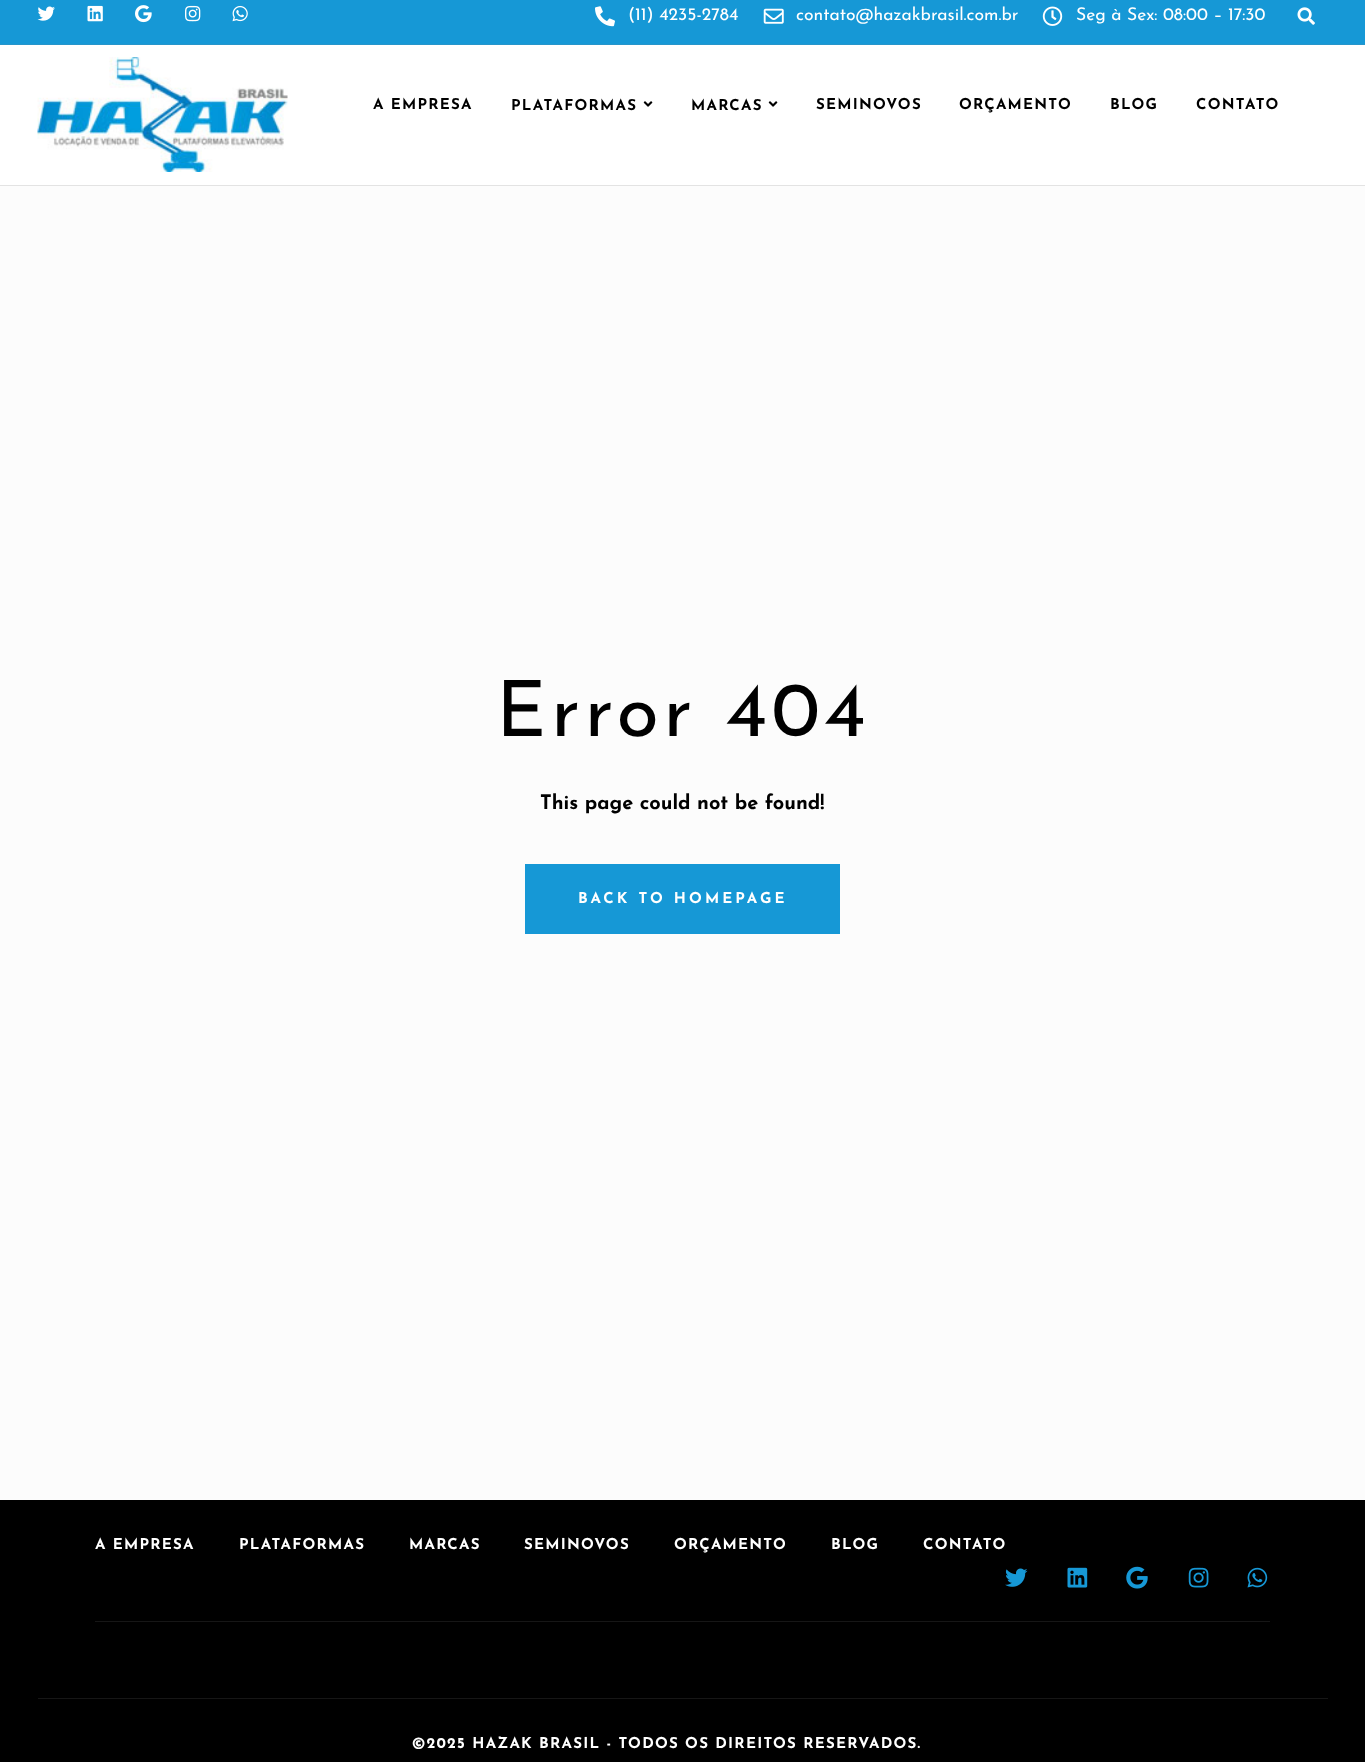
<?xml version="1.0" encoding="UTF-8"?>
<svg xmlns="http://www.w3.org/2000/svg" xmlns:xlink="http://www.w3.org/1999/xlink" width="1365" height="1762">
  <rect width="100%" height="100%" fill="#fcfcfc" />
  <rect y="185" width="1365" height="1" fill="#e3e3e3" />
  <rect width="1365" height="44" fill="#1698d6" />
  <rect y="44" width="1365" height="1" fill="#2795ca" />
  <image x="37" y="6" width="18" height="15" xlink:href="image1.png" />
  <image x="87" y="5" width="16" height="17" xlink:href="image2.png" />
  <image x="135" y="5" width="17" height="18" xlink:href="image3.png" />
  <image x="185" y="5" width="16" height="17" xlink:href="image4.png" />
  <image x="232" y="5" width="16" height="17" xlink:href="image5.png" />
  <image x="595" y="6" width="20" height="21" xlink:href="image6.png" />
  <image x="763" y="8" width="21" height="16" xlink:href="image7.png" />
  <image x="1042" y="6" width="21" height="20" xlink:href="image8.png" />
  <image x="1297" y="7" width="18" height="18" xlink:href="image9.png" />
  <rect y="45" width="1365" height="140" fill="#ffffff" />
  <image x="37" y="57" width="251" height="115" xlink:href="image10.png" />
  <image x="643" y="101" width="10" height="6" xlink:href="image11.png" />
  <image x="768" y="101" width="10" height="6" xlink:href="image11.png" />
  <rect x="525" y="864" width="315" height="70" fill="#1698d6" />
  <rect y="1500" width="1365" height="262" fill="#000000" />
  <rect x="95" y="1621" width="1175" height="1" fill="#161616" />
  <image x="1005" y="1568" width="23" height="19" xlink:href="image12.png" />
  <image x="1067" y="1567" width="21" height="21" xlink:href="image13.png" />
  <image x="1126" y="1566" width="22" height="23" xlink:href="image14.png" />
  <image x="1188" y="1567" width="21" height="21" xlink:href="image15.png" />
  <image x="1247" y="1567" width="21" height="21" xlink:href="image16.png" />
  <rect x="38" y="1698" width="1290" height="1" fill="#161616" />
  <text x="628" y="20" style="font-family: Josefin Sans; font-size: 17.5px; fill: #ffffff">(11) 4235-2784</text>
  <text x="796" y="20" style="font-family: Josefin Sans; font-size: 17.5px; fill: #ffffff">contato@hazakbrasil.com.br</text>
  <text x="1076" y="20" style="font-family: Josefin Sans; font-size: 17.5px; fill: #ffffff">Seg à Sex: 08:00 – 17:30</text>
  <text x="373" y="109" style="font-family: Josefin Sans; font-size: 15px; font-weight: bold; letter-spacing: 1.25px; fill: #000000">A EMPRESA</text>
  <text x="511" y="110" style="font-family: Josefin Sans; font-size: 15px; font-weight: bold; letter-spacing: 1.25px; fill: #000000">PLATAFORMAS</text>
  <text x="691" y="110" style="font-family: Josefin Sans; font-size: 15px; font-weight: bold; letter-spacing: 1.25px; fill: #000000">MARCAS</text>
  <text x="816" y="109" style="font-family: Josefin Sans; font-size: 15px; font-weight: bold; letter-spacing: 1.25px; fill: #000000">SEMINOVOS</text>
  <text x="959" y="109" style="font-family: Josefin Sans; font-size: 15px; font-weight: bold; letter-spacing: 1.25px; fill: #000000">ORÇAMENTO</text>
  <text x="1110" y="109" style="font-family: Josefin Sans; font-size: 15px; font-weight: bold; letter-spacing: 1.25px; fill: #000000">BLOG</text>
  <text x="1196" y="109" style="font-family: Josefin Sans; font-size: 15px; font-weight: bold; letter-spacing: 1.25px; fill: #000000">CONTATO</text>
  <text x="496" y="736" style="font-family: Josefin Sans; font-size: 77.5px; letter-spacing: 4.4px; fill: #000000">Error 404</text>
  <text x="540" y="809" style="font-family: Josefin Sans; font-size: 20px; font-weight: bold; fill: #000000">This page could not be found!</text>
  <text x="578" y="903" style="font-family: Josefin Sans; font-size: 15px; font-weight: bold; letter-spacing: 3.1px; fill: #ffffff">BACK TO HOMEPAGE</text>
  <text x="95" y="1549" style="font-family: Josefin Sans; font-size: 15px; font-weight: bold; letter-spacing: 1.25px; fill: #ffffff">A EMPRESA</text>
  <text x="239" y="1549" style="font-family: Josefin Sans; font-size: 15px; font-weight: bold; letter-spacing: 1.25px; fill: #ffffff">PLATAFORMAS</text>
  <text x="409" y="1549" style="font-family: Josefin Sans; font-size: 15px; font-weight: bold; letter-spacing: 1.25px; fill: #ffffff">MARCAS</text>
  <text x="524" y="1549" style="font-family: Josefin Sans; font-size: 15px; font-weight: bold; letter-spacing: 1.25px; fill: #ffffff">SEMINOVOS</text>
  <text x="674" y="1549" style="font-family: Josefin Sans; font-size: 15px; font-weight: bold; letter-spacing: 1.25px; fill: #ffffff">ORÇAMENTO</text>
  <text x="831" y="1549" style="font-family: Josefin Sans; font-size: 15px; font-weight: bold; letter-spacing: 1.25px; fill: #ffffff">BLOG</text>
  <text x="923" y="1549" style="font-family: Josefin Sans; font-size: 15px; font-weight: bold; letter-spacing: 1.25px; fill: #ffffff">CONTATO</text>
  <text x="412" y="1748" style="font-family: Josefin Sans; font-size: 15px; font-weight: bold; letter-spacing: 1.25px; fill: #ffffff">©2025 HAZAK BRASIL - TODOS OS DIREITOS RESERVADOS.</text>
</svg>
